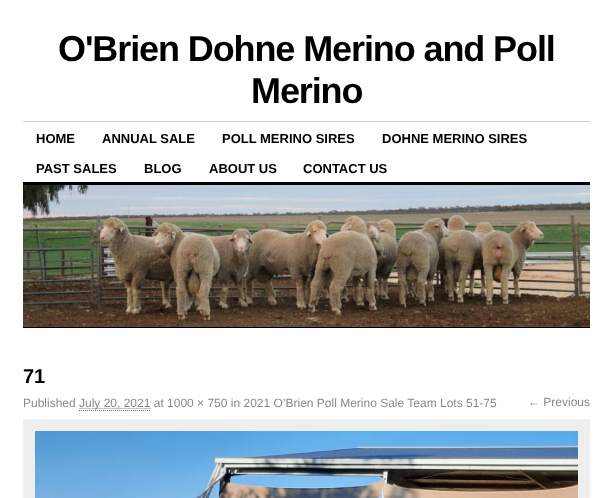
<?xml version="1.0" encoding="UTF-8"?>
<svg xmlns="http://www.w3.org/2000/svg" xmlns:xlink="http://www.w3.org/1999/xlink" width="613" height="498">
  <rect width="100%" height="100%" fill="#ffffff" />
  <rect x="23" y="121" width="567" height="1" fill="#cccccc" />
  <rect x="23" y="182" width="567" height="3" fill="#000000" />
  <image x="23" y="185" width="567" height="142" xlink:href="image1.png" />
  <rect x="23" y="327" width="567" height="1" fill="#000000" />
  <path d="M 79 410.5 h 72" fill="none" stroke="#666666" stroke-dasharray="1 1" />
  <path d="M 79.5 408.5 h 71" fill="none" stroke="#888888" stroke-dasharray="1 1" />
  <rect x="23" y="419" width="567" height="79" fill="#eeeeee" />
  <image x="35" y="431" width="543" height="67" xlink:href="image2.png" />
  <text x="58" y="61" style="font-family: Liberation Sans; font-size: 36px; font-weight: bold; letter-spacing: -1.1px; fill: #000000">O'Brien Dohne Merino and Poll</text>
  <text x="251" y="103" style="font-family: Liberation Sans; font-size: 36px; font-weight: bold; letter-spacing: -1.1px; fill: #000000">Merino</text>
  <text x="36" y="143" style="font-family: Liberation Sans; font-size: 13px; font-weight: bold; fill: #000000">HOME</text>
  <text x="102" y="143" style="font-family: Liberation Sans; font-size: 13px; font-weight: bold; fill: #000000">ANNUAL SALE</text>
  <text x="222" y="143" style="font-family: Liberation Sans; font-size: 13px; font-weight: bold; fill: #000000">POLL MERINO SIRES</text>
  <text x="382" y="143" style="font-family: Liberation Sans; font-size: 13px; font-weight: bold; fill: #000000">DOHNE MERINO SIRES</text>
  <text x="36" y="173" style="font-family: Liberation Sans; font-size: 13px; font-weight: bold; fill: #000000">PAST SALES</text>
  <text x="144" y="173" style="font-family: Liberation Sans; font-size: 13px; font-weight: bold; fill: #000000">BLOG</text>
  <text x="209" y="173" style="font-family: Liberation Sans; font-size: 13px; font-weight: bold; fill: #000000">ABOUT US</text>
  <text x="303" y="173" style="font-family: Liberation Sans; font-size: 13px; font-weight: bold; fill: #000000">CONTACT US</text>
  <text x="23" y="383" style="font-family: Liberation Sans; font-size: 20px; font-weight: bold; fill: #000000">71</text>
  <text x="23" y="407" style="font-family: Liberation Sans; font-size: 12px; fill: #888888">Published</text>
  <text x="79" y="407" style="font-family: Liberation Sans; font-size: 12px; fill: #888888">July 20, 2021 at 1000 × 750 in 2021 O’Brien Poll Merino Sale Team Lots 51-75</text>
  <text x="528" y="406" style="font-family: Liberation Sans; font-size: 12px; fill: #888888">← Previous</text>
</svg>
